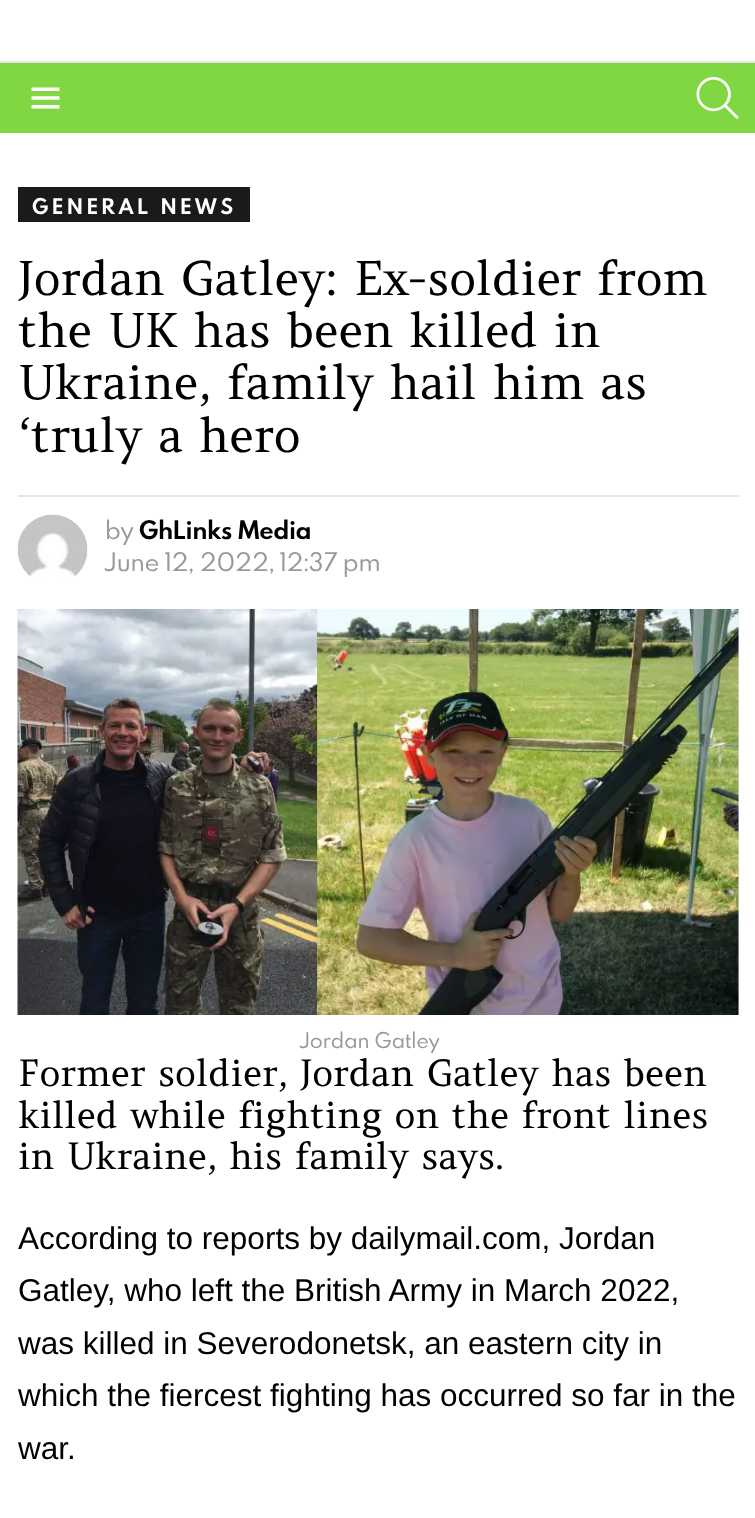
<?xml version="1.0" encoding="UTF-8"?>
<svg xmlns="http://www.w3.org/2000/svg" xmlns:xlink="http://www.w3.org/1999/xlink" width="755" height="1518">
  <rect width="100%" height="100%" fill="#e6e6e6" />
  <rect width="755" height="61" fill="#ffffff" />
  <rect y="63" width="755" height="70" fill="#81d742" />
  <image x="31" y="87" width="29" height="22" xlink:href="image1.png" />
  <image x="696" y="77" width="43" height="42" xlink:href="image2.png" />
  <rect y="133" width="755" height="1385" fill="#ffffff" />
  <rect x="18" y="187" width="232" height="35" fill="#1a1a1a" />
  <rect x="18" y="495" width="721" height="2" fill="#e6e6e6" />
  <image x="17" y="514" width="71" height="63" xlink:href="image3.png" />
  <rect x="738" y="609" width="1" height="406" fill="#e6e6e6" />
  <image x="17" y="609" width="722" height="406" xlink:href="image4.png" />
  <text x="32" y="214" style="font-family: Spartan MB; font-size: 19.25px; font-weight: bold; letter-spacing: 3.8px; fill: #ffffff">GENERAL NEWS</text>
  <text x="18" y="295" style="font-family: Amethysta; font-size: 47.25px; fill: #000000">Jordan Gatley: Ex-soldier from</text>
  <text x="18" y="347" style="font-family: Amethysta; font-size: 47.25px; fill: #000000">the UK has been killed in</text>
  <text x="18" y="399" style="font-family: Amethysta; font-size: 47.25px; fill: #000000">Ukraine, family hail him as</text>
  <text x="18" y="452" style="font-family: Amethysta; font-size: 47.25px; fill: #000000">‘truly a hero</text>
  <text x="105" y="539" style="font-family: Spartan MB; font-size: 22.75px; fill: #999999">by</text>
  <text x="139" y="539" style="font-family: Spartan MB; font-size: 22.75px; font-weight: bold; fill: #000000">GhLinks Media</text>
  <text x="105" y="571" style="font-family: Spartan MB; font-size: 22.75px; fill: #999999">June 12, 2022, 12:37 pm</text>
  <text x="300" y="1048" style="font-family: Spartan MB; font-size: 19.25px; fill: #999999">Jordan Gatley</text>
  <text x="18" y="1086" style="font-family: Amethysta; font-size: 36.75px; fill: #000000">Former soldier, Jordan Gatley has been</text>
  <text x="18" y="1128" style="font-family: Amethysta; font-size: 36.75px; fill: #000000">killed while fighting on the front lines</text>
  <text x="18" y="1169" style="font-family: Amethysta; font-size: 36.75px; fill: #000000">in Ukraine, his family says.</text>
  <text x="18" y="1249" style="font-family: Liberation Sans; font-size: 31.5px; fill: #000000">According to reports by dailymail.com, Jordan</text>
  <text x="18" y="1301" style="font-family: Liberation Sans; font-size: 31.5px; fill: #000000">Gatley, who left the British Army in March 2022,</text>
  <text x="18" y="1354" style="font-family: Liberation Sans; font-size: 31.5px; fill: #000000">was killed in Severodonetsk, an eastern city in</text>
  <text x="18" y="1406" style="font-family: Liberation Sans; font-size: 31.5px; fill: #000000">which the fiercest fighting has occurred so far in the</text>
  <text x="18" y="1459" style="font-family: Liberation Sans; font-size: 31.5px; fill: #000000">war.</text>
</svg>
